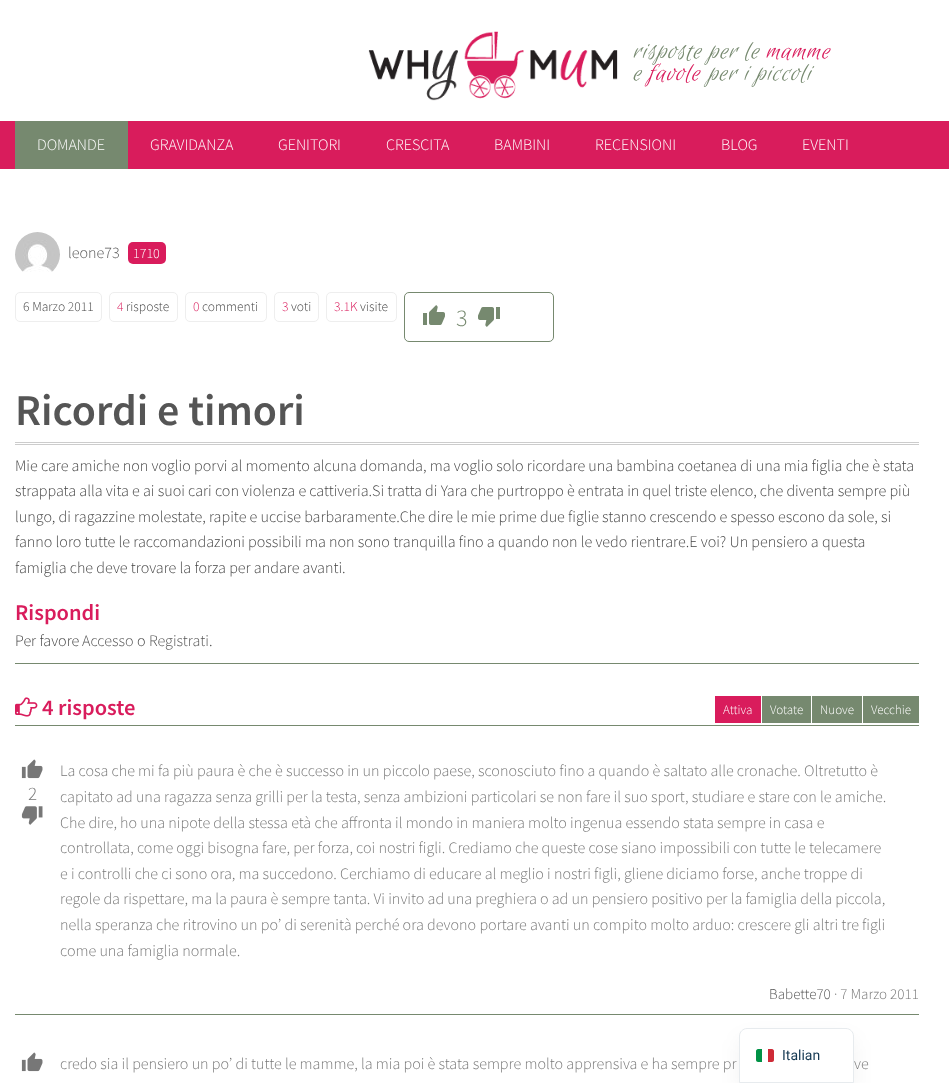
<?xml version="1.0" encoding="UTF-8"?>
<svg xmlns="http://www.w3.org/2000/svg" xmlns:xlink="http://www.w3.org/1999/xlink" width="949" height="1083">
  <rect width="100%" height="100%" fill="#ffffff" />
  <image x="368" y="31" width="250" height="70" xlink:href="image1.png" />
  <rect y="121" width="949" height="48" fill="#d91c5c" />
  <rect x="15" y="121" width="113" height="48" fill="#76896f" />
  <image x="15" y="232" width="45" height="40" xlink:href="image2.png" />
  <rect x="128" y="242" width="38" height="22" rx="5" fill="#d91c5c" />
  <rect x="15.5" y="292.5" width="86" height="29" rx="4.5" fill="none" stroke="#eeeeee" />
  <rect x="109.5" y="292.5" width="68" height="29" rx="4.5" fill="none" stroke="#eeeeee" />
  <rect x="185.5" y="292.5" width="81" height="29" rx="4.5" fill="none" stroke="#eeeeee" />
  <rect x="274.5" y="292.5" width="44" height="29" rx="4.5" fill="none" stroke="#eeeeee" />
  <rect x="326.5" y="292.5" width="70" height="29" rx="4.5" fill="none" stroke="#eeeeee" />
  <rect x="404.5" y="292.5" width="149" height="49" rx="4.5" fill="none" stroke="#76896f" />
  <image x="423" y="305" width="22" height="20" xlink:href="image3.png" />
  <image x="478" y="307" width="22" height="20" xlink:href="image4.png" />
  <rect x="15" y="442" width="904" height="1" fill="#cccccc" />
  <rect x="15" y="444" width="904" height="1" fill="#cccccc" />
  <rect x="15" y="663" width="904" height="1" fill="#76896f" />
  <rect x="15" y="725" width="904" height="1" fill="#76896f" />
  <image x="15" y="697" width="23" height="20" xlink:href="image5.png" />
  <rect x="715" y="696" width="46" height="27" fill="#d91c5c" />
  <rect x="762" y="696" width="49" height="27" fill="#76896f" />
  <rect x="812" y="696" width="50" height="27" fill="#76896f" />
  <rect x="863" y="696" width="56" height="27" fill="#76896f" />
  <image x="21" y="759" width="22" height="20" xlink:href="image6.png" />
  <image x="21" y="806" width="22" height="19" xlink:href="image7.png" />
  <rect x="15" y="1014" width="904" height="1" fill="#76896f" />
  <image x="21" y="1052" width="22" height="20" xlink:href="image6.png" />
  <rect x="739" y="1038" width="115" height="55" rx="8" fill="#000000" fill-opacity="0.05" filter="blur(10px)" />
  <path d="M 747 1028.5 h 99 c 4 0 7.5 3.5 7.5 7.5 v 46.5 h -114 v -46.5 c 0 -4 3.5 -7.5 7.5 -7.5 z" fill="#ffffff" stroke="#e7ebee" />
  <path d="M 758 1049 h 4 v 13 h -4 c -1 0 -2 -1 -2 -2 v -9 c 0 -1 1 -2 2 -2 z" fill="#009246" />
  <path d="M 768 1049 h 4 c 1 0 2 1 2 2 v 9 c 0 1 -1 2 -2 2 h -4 z" fill="#ce2b37" />
  <text x="633" y="58" style="font-family: Euphoria Script; font-size: 26px; font-style: italic; letter-spacing: 1px; fill: #76896f">risposte per le</text>
  <text x="766" y="58" style="font-family: Euphoria Script; font-size: 26px; font-style: italic; letter-spacing: 1px; fill: #d91c5c">mamme</text>
  <text x="633" y="80" style="font-family: Euphoria Script; font-size: 26px; font-style: italic; letter-spacing: 1px; fill: #76896f">e</text>
  <text x="648" y="80" style="font-family: Euphoria Script; font-size: 26px; font-style: italic; letter-spacing: 1px; fill: #d91c5c">favole</text>
  <text x="708" y="80" style="font-family: Euphoria Script; font-size: 26px; font-style: italic; letter-spacing: 1px; fill: #76896f">per i piccoli</text>
  <text x="37" y="150" style="font-family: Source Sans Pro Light; font-size: 16px; font-weight: 300; fill: #ffffff">DOMANDE</text>
  <text x="150" y="150" style="font-family: Source Sans Pro Light; font-size: 16px; font-weight: 300; fill: #ffffff">GRAVIDANZA</text>
  <text x="278" y="150" style="font-family: Source Sans Pro Light; font-size: 16px; font-weight: 300; fill: #ffffff">GENITORI</text>
  <text x="386" y="150" style="font-family: Source Sans Pro Light; font-size: 16px; font-weight: 300; fill: #ffffff">CRESCITA</text>
  <text x="494" y="150" style="font-family: Source Sans Pro Light; font-size: 16px; font-weight: 300; fill: #ffffff">BAMBINI</text>
  <text x="595" y="150" style="font-family: Source Sans Pro Light; font-size: 16px; font-weight: 300; fill: #ffffff">RECENSIONI</text>
  <text x="721" y="150" style="font-family: Source Sans Pro Light; font-size: 16px; font-weight: 300; fill: #ffffff">BLOG</text>
  <text x="802" y="150" style="font-family: Source Sans Pro Light; font-size: 16px; font-weight: 300; fill: #ffffff">EVENTI</text>
  <text x="68" y="258" style="font-family: Source Sans Pro Light; font-size: 16px; font-weight: 300; fill: #555555">leone73</text>
  <text x="133" y="258" style="font-family: Source Sans Pro Light; font-size: 14px; font-weight: 300; fill: #ffffff">1710</text>
  <text x="23" y="311" style="font-family: Source Sans Pro Light; font-size: 13.5px; font-weight: 300; fill: #444444">6 Marzo 2011</text>
  <text x="117" y="311" style="font-family: Source Sans Pro Light; font-size: 13.5px; font-weight: 300; fill: #d91c5c">4</text>
  <text x="126" y="311" style="font-family: Source Sans Pro Light; font-size: 13.5px; font-weight: 300; fill: #444444">risposte</text>
  <text x="193" y="311" style="font-family: Source Sans Pro Light; font-size: 13.5px; font-weight: 300; fill: #d91c5c">0</text>
  <text x="202" y="311" style="font-family: Source Sans Pro Light; font-size: 13.5px; font-weight: 300; fill: #444444">commenti</text>
  <text x="282" y="311" style="font-family: Source Sans Pro Light; font-size: 13.5px; font-weight: 300; fill: #d91c5c">3</text>
  <text x="291" y="311" style="font-family: Source Sans Pro Light; font-size: 13.5px; font-weight: 300; fill: #444444">voti</text>
  <text x="334" y="311" style="font-family: Source Sans Pro Light; font-size: 13.5px; font-weight: 300; fill: #d91c5c">3.1K</text>
  <text x="360" y="311" style="font-family: Source Sans Pro Light; font-size: 13.5px; font-weight: 300; fill: #444444">visite</text>
  <text x="456" y="326" style="font-family: Source Sans Pro Light; font-size: 24px; font-weight: 300; fill: #76896f">3</text>
  <text x="15" y="425" style="font-family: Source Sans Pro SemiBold; font-size: 44px; font-weight: 600; fill: #555555">Ricordi e timori</text>
  <text x="15" y="471" style="font-family: Source Sans Pro Light; font-size: 16px; font-weight: 300; fill: #444444">Mie care amiche non voglio porvi al momento alcuna domanda, ma voglio solo ricordare una bambina coetanea di una mia figlia che è stata</text>
  <text x="15" y="496" style="font-family: Source Sans Pro Light; font-size: 16px; font-weight: 300; fill: #444444">strappata alla vita e ai suoi cari con violenza e cattiveria.Si tratta di Yara che purtroppo è entrata in quel triste elenco, che diventa sempre più</text>
  <text x="15" y="522" style="font-family: Source Sans Pro Light; font-size: 16px; font-weight: 300; fill: #444444">lungo, di ragazzine molestate, rapite e uccise barbaramente.Che dire le mie prime due figlie stanno crescendo e spesso escono da sole, si</text>
  <text x="15" y="547" style="font-family: Source Sans Pro Light; font-size: 16px; font-weight: 300; fill: #444444">fanno loro tutte le raccomandazioni possibili ma non sono tranquilla fino a quando non le vedo rientrare.E voi? Un pensiero a questa</text>
  <text x="15" y="573" style="font-family: Source Sans Pro Light; font-size: 16px; font-weight: 300; fill: #444444">famiglia che deve trovare la forza per andare avanti.</text>
  <text x="15" y="620" style="font-family: Source Sans Pro SemiBold; font-size: 22.5px; font-weight: 600; fill: #d91c5c">Rispondi</text>
  <text x="15" y="646" style="font-family: Source Sans Pro Light; font-size: 16px; font-weight: 300; fill: #444444">Per favore</text>
  <text x="82" y="646" style="font-family: Source Sans Pro Light; font-size: 16px; font-weight: 300; fill: #555555">Accesso</text>
  <text x="137" y="646" style="font-family: Source Sans Pro Light; font-size: 16px; font-weight: 300; fill: #444444">o</text>
  <text x="149" y="646" style="font-family: Source Sans Pro Light; font-size: 16px; font-weight: 300; fill: #555555">Registrati</text>
  <text x="209" y="646" style="font-family: Source Sans Pro Light; font-size: 16px; font-weight: 300; fill: #444444">.</text>
  <text x="42" y="715" style="font-family: Source Sans Pro SemiBold; font-size: 22.5px; font-weight: 600; fill: #d91c5c">4 risposte</text>
  <text x="723" y="714" style="font-family: Source Sans Pro Light; font-size: 13px; font-weight: 300; fill: #ffffff">Attiva</text>
  <text x="770" y="714" style="font-family: Source Sans Pro Light; font-size: 13px; font-weight: 300; fill: #ffffff">Votate</text>
  <text x="820" y="714" style="font-family: Source Sans Pro Light; font-size: 13px; font-weight: 300; fill: #ffffff">Nuove</text>
  <text x="871" y="714" style="font-family: Source Sans Pro Light; font-size: 13px; font-weight: 300; fill: #ffffff">Vecchie</text>
  <text x="28" y="800" style="font-family: Source Sans Pro Light; font-size: 19px; font-weight: 300; fill: #777777">2</text>
  <text x="60" y="776" style="font-family: Source Sans Pro Light; font-size: 16px; font-weight: 300; fill: #777777">La cosa che mi fa più paura è che è successo in un piccolo paese, sconosciuto fino a quando è saltato alle cronache. Oltretutto è</text>
  <text x="60" y="802" style="font-family: Source Sans Pro Light; font-size: 16px; font-weight: 300; fill: #777777">capitato ad una ragazza senza grilli per la testa, senza ambizioni particolari se non fare il suo sport, studiare e stare con le amiche.</text>
  <text x="60" y="828" style="font-family: Source Sans Pro Light; font-size: 16px; font-weight: 300; fill: #777777">Che dire, ho una nipote della stessa età che affronta il mondo in maniera molto ingenua essendo stata sempre in casa e</text>
  <text x="60" y="853" style="font-family: Source Sans Pro Light; font-size: 16px; font-weight: 300; fill: #777777">controllata, come oggi bisogna fare, per forza, coi nostri figli. Crediamo che queste cose siano impossibili con tutte le telecamere</text>
  <text x="60" y="879" style="font-family: Source Sans Pro Light; font-size: 16px; font-weight: 300; fill: #777777">e i controlli che ci sono ora, ma succedono. Cerchiamo di educare al meglio i nostri figli, gliene diciamo forse, anche troppe di</text>
  <text x="60" y="904" style="font-family: Source Sans Pro Light; font-size: 16px; font-weight: 300; fill: #777777">regole da rispettare, ma la paura è sempre tanta. Vi invito ad una preghiera o ad un pensiero positivo per la famiglia della piccola,</text>
  <text x="60" y="930" style="font-family: Source Sans Pro Light; font-size: 16px; font-weight: 300; fill: #777777">nella speranza che ritrovino un po’ di serenità perché ora devono portare avanti un compito molto arduo: crescere gli altri tre figli</text>
  <text x="60" y="956" style="font-family: Source Sans Pro Light; font-size: 16px; font-weight: 300; fill: #777777">come una famiglia normale.</text>
  <text x="769" y="999" style="font-family: Source Sans Pro Light; font-size: 15px; font-weight: 300; fill: #555555">Babette70</text>
  <text x="834" y="999" style="font-family: Source Sans Pro Light; font-size: 15px; font-weight: 300; fill: #777777">· 7 Marzo 2011</text>
  <text x="60" y="1069" style="font-family: Source Sans Pro Light; font-size: 16px; font-weight: 300; fill: #777777">credo sia il pensiero un po’ di tutte le mamme, la mia poi è stata sempre molto apprensiva e ha sempre pr</text>
  <text x="854" y="1069" style="font-family: Source Sans Pro Light; font-size: 16px; font-weight: 300; fill: #777777">ve</text>
  <text x="782" y="1060" style="font-family: Roboto; font-size: 14px; fill: #143852">Italian</text>
</svg>
